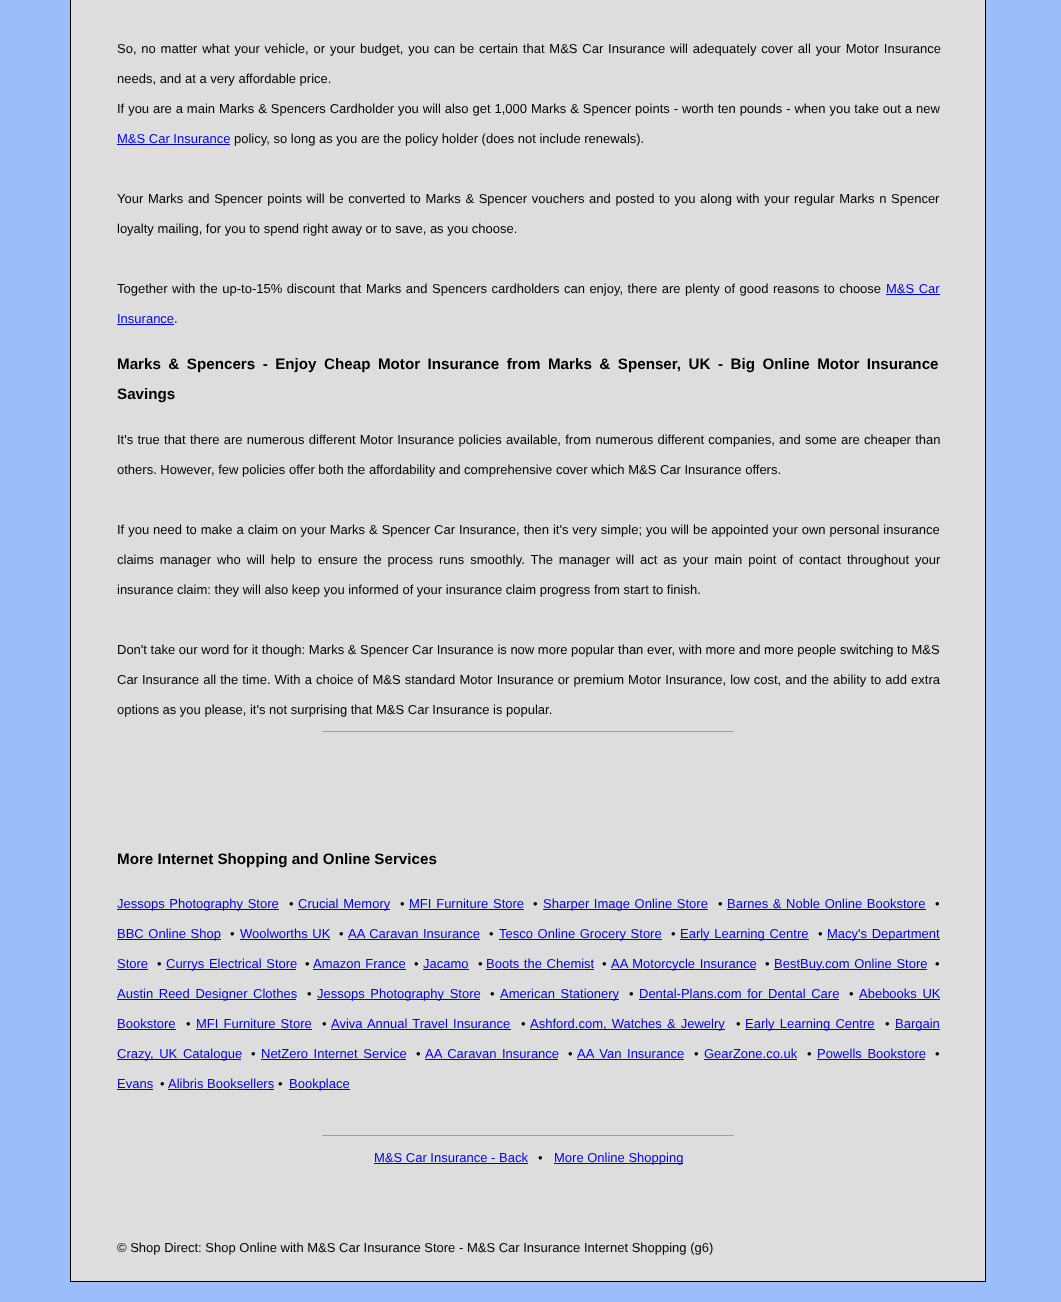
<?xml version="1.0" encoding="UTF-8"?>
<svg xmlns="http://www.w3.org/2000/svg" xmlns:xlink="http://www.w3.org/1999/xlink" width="1061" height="1302">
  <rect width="100%" height="100%" fill="#9cbdfb" />
  <rect x="70.5" y="-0.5" width="915" height="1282" fill="#dddddd" stroke="#000000" />
  <rect x="117" y="144" width="113" height="1" fill="#0000ee" />
  <rect x="886" y="294" width="54" height="1" fill="#0000ee" />
  <rect x="117" y="324" width="57" height="1" fill="#0000ee" />
  <rect x="322" y="731" width="413" height="1" fill="#9f9f9f" />
  <rect x="734" y="731" width="1" height="1" fill="#eeeeee" />
  <rect x="117" y="909" width="162" height="1" fill="#0000ee" />
  <rect x="298" y="909" width="92" height="1" fill="#0000ee" />
  <rect x="409" y="909" width="115" height="1" fill="#0000ee" />
  <rect x="543" y="909" width="165" height="1" fill="#0000ee" />
  <rect x="727" y="909" width="199" height="1" fill="#0000ee" />
  <rect x="117" y="939" width="104" height="1" fill="#0000ee" />
  <rect x="240" y="939" width="90" height="1" fill="#0000ee" />
  <rect x="348" y="939" width="132" height="1" fill="#0000ee" />
  <rect x="499" y="939" width="163" height="1" fill="#0000ee" />
  <rect x="680" y="939" width="129" height="1" fill="#0000ee" />
  <rect x="827" y="939" width="113" height="1" fill="#0000ee" />
  <rect x="117" y="969" width="31" height="1" fill="#0000ee" />
  <rect x="166" y="969" width="130" height="1" fill="#0000ee" />
  <rect x="313" y="969" width="93" height="1" fill="#0000ee" />
  <rect x="423" y="969" width="46" height="1" fill="#0000ee" />
  <rect x="486" y="969" width="108" height="1" fill="#0000ee" />
  <rect x="611" y="969" width="145" height="1" fill="#0000ee" />
  <rect x="774" y="969" width="153" height="1" fill="#0000ee" />
  <rect x="117" y="999" width="179" height="1" fill="#0000ee" />
  <rect x="317" y="999" width="163" height="1" fill="#0000ee" />
  <rect x="500" y="999" width="119" height="1" fill="#0000ee" />
  <rect x="639" y="999" width="200" height="1" fill="#0000ee" />
  <rect x="859" y="999" width="81" height="1" fill="#0000ee" />
  <rect x="117" y="1029" width="59" height="1" fill="#0000ee" />
  <rect x="196" y="1029" width="116" height="1" fill="#0000ee" />
  <rect x="331" y="1029" width="180" height="1" fill="#0000ee" />
  <rect x="530" y="1029" width="195" height="1" fill="#0000ee" />
  <rect x="745" y="1029" width="130" height="1" fill="#0000ee" />
  <rect x="895" y="1029" width="45" height="1" fill="#0000ee" />
  <rect x="117" y="1059" width="124" height="1" fill="#0000ee" />
  <rect x="261" y="1059" width="145" height="1" fill="#0000ee" />
  <rect x="425" y="1059" width="133" height="1" fill="#0000ee" />
  <rect x="577" y="1059" width="107" height="1" fill="#0000ee" />
  <rect x="704" y="1059" width="93" height="1" fill="#0000ee" />
  <rect x="817" y="1059" width="108" height="1" fill="#0000ee" />
  <rect x="117" y="1089" width="36" height="1" fill="#0000ee" />
  <rect x="168" y="1089" width="106" height="1" fill="#0000ee" />
  <rect x="289" y="1089" width="61" height="1" fill="#0000ee" />
  <rect x="322" y="1135" width="413" height="1" fill="#9f9f9f" />
  <rect x="734" y="1135" width="1" height="1" fill="#eeeeee" />
  <rect x="374" y="1163" width="154" height="1" fill="#0000ee" />
  <rect x="554" y="1163" width="129" height="1" fill="#0000ee" />
  <text x="117" y="53" word-spacing="1.2" style="font-family: Liberation Sans; font-size: 13px; fill: #000000">So, no matter what your vehicle, or your budget, you can be certain that M&amp;S Car Insurance will adequately cover all your Motor Insurance</text>
  <text x="117" y="83" style="font-family: Liberation Sans; font-size: 13px; fill: #000000">needs, and at a very affordable price.</text>
  <text x="117" y="113" word-spacing="0.3" style="font-family: Liberation Sans; font-size: 13px; fill: #000000">If you are a main Marks &amp; Spencers Cardholder you will also get 1,000 Marks &amp; Spencer points - worth ten pounds - when you take out a new</text>
  <text x="117" y="143" style="font-family: Liberation Sans; font-size: 13px; fill: #0000ee">M&amp;S Car Insurance</text>
  <text x="234" y="143" style="font-family: Liberation Sans; font-size: 13px; fill: #000000">policy, so long as you are the policy holder (does not include renewals).</text>
  <text x="117" y="203" word-spacing="1" style="font-family: Liberation Sans; font-size: 13px; fill: #000000">Your Marks and Spencer points will be converted to Marks &amp; Spencer vouchers and posted to you along with your regular Marks n Spencer</text>
  <text x="117" y="233" style="font-family: Liberation Sans; font-size: 13px; fill: #000000">loyalty mailing, for you to spend right away or to save, as you choose.</text>
  <text x="117" y="293" word-spacing="0.9" style="font-family: Liberation Sans; font-size: 13px; fill: #000000">Together with the up-to-15% discount that Marks and Spencers cardholders can enjoy, there are plenty of good reasons to choose</text>
  <text x="886" y="293" word-spacing="0.9" style="font-family: Liberation Sans; font-size: 13px; fill: #0000ee">M&amp;S Car</text>
  <text x="117" y="323" style="font-family: Liberation Sans; font-size: 13px; fill: #0000ee">Insurance</text>
  <text x="174" y="323" style="font-family: Liberation Sans; font-size: 13px; fill: #000000">.</text>
  <text x="117" y="369" word-spacing="3.25" style="font-family: Liberation Sans; font-size: 15.2px; font-weight: bold; fill: #000000">Marks &amp; Spencers - Enjoy Cheap Motor Insurance from Marks &amp; Spenser, UK - Big Online Motor Insurance</text>
  <text x="117" y="399" style="font-family: Liberation Sans; font-size: 15.2px; font-weight: bold; fill: #000000">Savings</text>
  <text x="117" y="444" word-spacing="0.6" style="font-family: Liberation Sans; font-size: 13px; fill: #000000">It's true that there are numerous different Motor Insurance policies available, from numerous different companies, and some are cheaper than</text>
  <text x="117" y="474" style="font-family: Liberation Sans; font-size: 13px; fill: #000000">others. However, few policies offer both the affordability and comprehensive cover which M&amp;S Car Insurance offers.</text>
  <text x="117" y="534" word-spacing="0.35" style="font-family: Liberation Sans; font-size: 13px; fill: #000000">If you need to make a claim on your Marks &amp; Spencer Car Insurance, then it's very simple; you will be appointed your own personal insurance</text>
  <text x="117" y="564" word-spacing="2.3" style="font-family: Liberation Sans; font-size: 13px; fill: #000000">claims manager who will help to ensure the process runs smoothly. The manager will act as your main point of contact throughout your</text>
  <text x="117" y="594" style="font-family: Liberation Sans; font-size: 13px; fill: #000000">insurance claim: they will also keep you informed of your insurance claim progress from start to finish.</text>
  <text x="117" y="654" style="font-family: Liberation Sans; font-size: 13px; fill: #000000">Don't take our word for it though: Marks &amp; Spencer Car Insurance is now more popular than ever, with more and more people switching to M&amp;S</text>
  <text x="117" y="684" word-spacing="0.45" style="font-family: Liberation Sans; font-size: 13px; fill: #000000">Car Insurance all the time. With a choice of M&amp;S standard Motor Insurance or premium Motor Insurance, low cost, and the ability to add extra</text>
  <text x="117" y="714" style="font-family: Liberation Sans; font-size: 13px; fill: #000000">options as you please, it's not surprising that M&amp;S Car Insurance is popular.</text>
  <text x="117" y="864" style="font-family: Liberation Sans; font-size: 15.2px; font-weight: bold; fill: #000000">More Internet Shopping and Online Services</text>
  <text x="117" y="908" word-spacing="1" style="font-family: Liberation Sans; font-size: 13px; fill: #0000ee">Jessops Photography Store</text>
  <text x="289" y="908" style="font-family: Liberation Sans; font-size: 13px; fill: #000000">•</text>
  <text x="298" y="908" word-spacing="1.2" style="font-family: Liberation Sans; font-size: 13px; fill: #0000ee">Crucial Memory</text>
  <text x="400" y="908" style="font-family: Liberation Sans; font-size: 13px; fill: #000000">•</text>
  <text x="409" y="908" word-spacing="1.2" style="font-family: Liberation Sans; font-size: 13px; fill: #0000ee">MFI Furniture Store</text>
  <text x="533" y="908" style="font-family: Liberation Sans; font-size: 13px; fill: #000000">•</text>
  <text x="543" y="908" word-spacing="1" style="font-family: Liberation Sans; font-size: 13px; fill: #0000ee">Sharper Image Online Store</text>
  <text x="718" y="908" style="font-family: Liberation Sans; font-size: 13px; fill: #000000">•</text>
  <text x="727" y="908" word-spacing="1" style="font-family: Liberation Sans; font-size: 13px; fill: #0000ee">Barnes &amp; Noble Online Bookstore</text>
  <text x="935" y="908" style="font-family: Liberation Sans; font-size: 13px; fill: #000000">•</text>
  <text x="117" y="938" word-spacing="1" style="font-family: Liberation Sans; font-size: 13px; fill: #0000ee">BBC Online Shop</text>
  <text x="230" y="938" style="font-family: Liberation Sans; font-size: 13px; fill: #000000">•</text>
  <text x="240" y="938" word-spacing="1" style="font-family: Liberation Sans; font-size: 13px; fill: #0000ee">Woolworths UK</text>
  <text x="339" y="938" style="font-family: Liberation Sans; font-size: 13px; fill: #000000">•</text>
  <text x="348" y="938" word-spacing="1" style="font-family: Liberation Sans; font-size: 13px; fill: #0000ee">AA Caravan Insurance</text>
  <text x="489" y="938" style="font-family: Liberation Sans; font-size: 13px; fill: #000000">•</text>
  <text x="499" y="938" word-spacing="1" style="font-family: Liberation Sans; font-size: 13px; fill: #0000ee">Tesco Online Grocery Store</text>
  <text x="671" y="938" style="font-family: Liberation Sans; font-size: 13px; fill: #000000">•</text>
  <text x="680" y="938" word-spacing="1" style="font-family: Liberation Sans; font-size: 13px; fill: #0000ee">Early Learning Centre</text>
  <text x="818" y="938" style="font-family: Liberation Sans; font-size: 13px; fill: #000000">•</text>
  <text x="827" y="938" word-spacing="1" style="font-family: Liberation Sans; font-size: 13px; fill: #0000ee">Macy's Department</text>
  <text x="117" y="968" style="font-family: Liberation Sans; font-size: 13px; fill: #0000ee">Store</text>
  <text x="157" y="968" style="font-family: Liberation Sans; font-size: 13px; fill: #000000">•</text>
  <text x="166" y="968" word-spacing="1" style="font-family: Liberation Sans; font-size: 13px; fill: #0000ee">Currys Electrical Store</text>
  <text x="305" y="968" style="font-family: Liberation Sans; font-size: 13px; fill: #000000">•</text>
  <text x="313" y="968" word-spacing="1" style="font-family: Liberation Sans; font-size: 13px; fill: #0000ee">Amazon France</text>
  <text x="414" y="968" style="font-family: Liberation Sans; font-size: 13px; fill: #000000">•</text>
  <text x="423" y="968" style="font-family: Liberation Sans; font-size: 13px; fill: #0000ee">Jacamo</text>
  <text x="478" y="968" style="font-family: Liberation Sans; font-size: 13px; fill: #000000">•</text>
  <text x="486" y="968" word-spacing="1" style="font-family: Liberation Sans; font-size: 13px; fill: #0000ee">Boots the Chemist</text>
  <text x="602" y="968" style="font-family: Liberation Sans; font-size: 13px; fill: #000000">•</text>
  <text x="611" y="968" word-spacing="1" style="font-family: Liberation Sans; font-size: 13px; fill: #0000ee">AA Motorcycle Insurance</text>
  <text x="765" y="968" style="font-family: Liberation Sans; font-size: 13px; fill: #000000">•</text>
  <text x="774" y="968" word-spacing="1" style="font-family: Liberation Sans; font-size: 13px; fill: #0000ee">BestBuy.com Online Store</text>
  <text x="935" y="968" style="font-family: Liberation Sans; font-size: 13px; fill: #000000">•</text>
  <text x="117" y="998" word-spacing="2" style="font-family: Liberation Sans; font-size: 13px; fill: #0000ee">Austin Reed Designer Clothes</text>
  <text x="307" y="998" style="font-family: Liberation Sans; font-size: 13px; fill: #000000">•</text>
  <text x="317" y="998" word-spacing="2" style="font-family: Liberation Sans; font-size: 13px; fill: #0000ee">Jessops Photography Store</text>
  <text x="490" y="998" style="font-family: Liberation Sans; font-size: 13px; fill: #000000">•</text>
  <text x="500" y="998" word-spacing="2" style="font-family: Liberation Sans; font-size: 13px; fill: #0000ee">American Stationery</text>
  <text x="629" y="998" style="font-family: Liberation Sans; font-size: 13px; fill: #000000">•</text>
  <text x="639" y="998" word-spacing="2" style="font-family: Liberation Sans; font-size: 13px; fill: #0000ee">Dental-Plans.com for Dental Care</text>
  <text x="849" y="998" style="font-family: Liberation Sans; font-size: 13px; fill: #000000">•</text>
  <text x="859" y="998" word-spacing="2" style="font-family: Liberation Sans; font-size: 13px; fill: #0000ee">Abebooks UK</text>
  <text x="117" y="1028" style="font-family: Liberation Sans; font-size: 13px; fill: #0000ee">Bookstore</text>
  <text x="186" y="1028" style="font-family: Liberation Sans; font-size: 13px; fill: #000000">•</text>
  <text x="196" y="1028" word-spacing="1.5" style="font-family: Liberation Sans; font-size: 13px; fill: #0000ee">MFI Furniture Store</text>
  <text x="322" y="1028" style="font-family: Liberation Sans; font-size: 13px; fill: #000000">•</text>
  <text x="331" y="1028" word-spacing="1.5" style="font-family: Liberation Sans; font-size: 13px; fill: #0000ee">Aviva Annual Travel Insurance</text>
  <text x="521" y="1028" style="font-family: Liberation Sans; font-size: 13px; fill: #000000">•</text>
  <text x="530" y="1028" word-spacing="1.5" style="font-family: Liberation Sans; font-size: 13px; fill: #0000ee">Ashford.com, Watches &amp; Jewelry</text>
  <text x="736" y="1028" style="font-family: Liberation Sans; font-size: 13px; fill: #000000">•</text>
  <text x="745" y="1028" word-spacing="1.5" style="font-family: Liberation Sans; font-size: 13px; fill: #0000ee">Early Learning Centre</text>
  <text x="885" y="1028" style="font-family: Liberation Sans; font-size: 13px; fill: #000000">•</text>
  <text x="895" y="1028" style="font-family: Liberation Sans; font-size: 13px; fill: #0000ee">Bargain</text>
  <text x="117" y="1058" word-spacing="2" style="font-family: Liberation Sans; font-size: 13px; fill: #0000ee">Crazy, UK Catalogue</text>
  <text x="251" y="1058" style="font-family: Liberation Sans; font-size: 13px; fill: #000000">•</text>
  <text x="261" y="1058" word-spacing="2" style="font-family: Liberation Sans; font-size: 13px; fill: #0000ee">NetZero Internet Service</text>
  <text x="416" y="1058" style="font-family: Liberation Sans; font-size: 13px; fill: #000000">•</text>
  <text x="425" y="1058" word-spacing="2" style="font-family: Liberation Sans; font-size: 13px; fill: #0000ee">AA Caravan Insurance</text>
  <text x="568" y="1058" style="font-family: Liberation Sans; font-size: 13px; fill: #000000">•</text>
  <text x="577" y="1058" word-spacing="2" style="font-family: Liberation Sans; font-size: 13px; fill: #0000ee">AA Van Insurance</text>
  <text x="694" y="1058" style="font-family: Liberation Sans; font-size: 13px; fill: #000000">•</text>
  <text x="704" y="1058" style="font-family: Liberation Sans; font-size: 13px; fill: #0000ee">GearZone.co.uk</text>
  <text x="807" y="1058" style="font-family: Liberation Sans; font-size: 13px; fill: #000000">•</text>
  <text x="817" y="1058" word-spacing="2" style="font-family: Liberation Sans; font-size: 13px; fill: #0000ee">Powells Bookstore</text>
  <text x="935" y="1058" style="font-family: Liberation Sans; font-size: 13px; fill: #000000">•</text>
  <text x="117" y="1088" style="font-family: Liberation Sans; font-size: 13px; fill: #0000ee">Evans</text>
  <text x="160" y="1088" style="font-family: Liberation Sans; font-size: 13px; fill: #000000">•</text>
  <text x="168" y="1088" style="font-family: Liberation Sans; font-size: 13px; fill: #0000ee">Alibris Booksellers</text>
  <text x="278" y="1088" style="font-family: Liberation Sans; font-size: 13px; fill: #000000">•</text>
  <text x="289" y="1088" style="font-family: Liberation Sans; font-size: 13px; fill: #0000ee">Bookplace</text>
  <text x="374" y="1162" style="font-family: Liberation Sans; font-size: 13px; fill: #0000ee">M&amp;S Car Insurance - Back</text>
  <text x="538" y="1162" style="font-family: Liberation Sans; font-size: 13px; fill: #000000">•</text>
  <text x="554" y="1162" style="font-family: Liberation Sans; font-size: 13px; fill: #0000ee">More Online Shopping</text>
  <text x="117" y="1252" style="font-family: Liberation Sans; font-size: 13px; fill: #000000">© Shop Direct: Shop Online with M&amp;S Car Insurance Store - M&amp;S Car Insurance Internet Shopping (g6)</text>
</svg>
